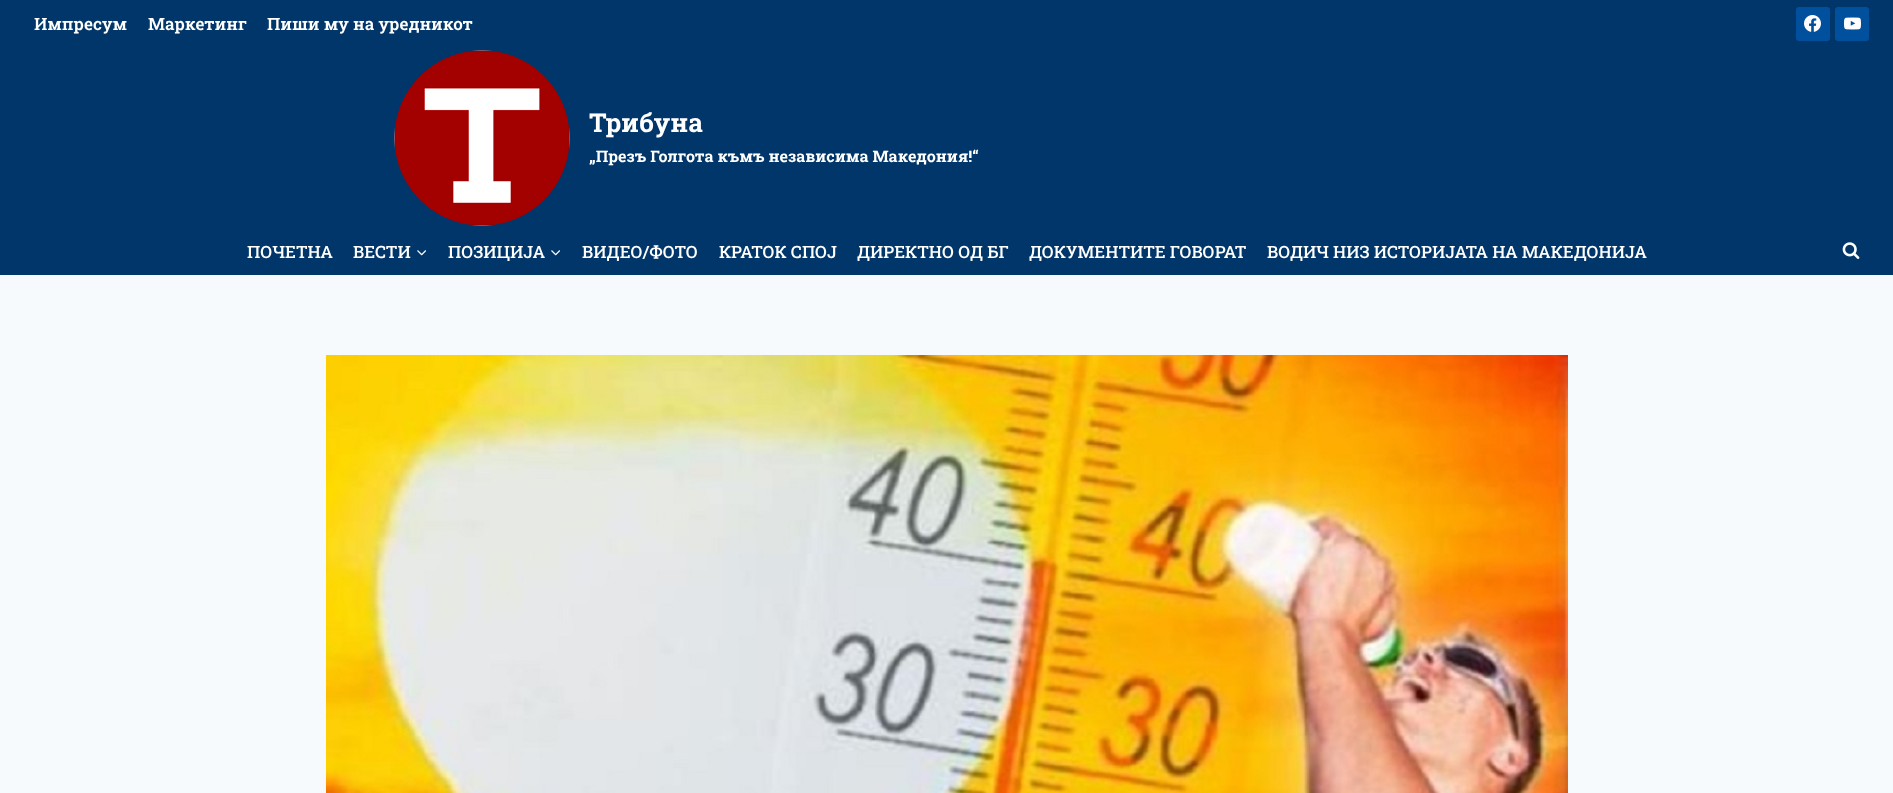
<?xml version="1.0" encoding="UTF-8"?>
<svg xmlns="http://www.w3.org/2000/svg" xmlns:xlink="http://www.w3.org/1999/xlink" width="1893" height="793">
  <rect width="100%" height="100%" fill="#f7fafc" />
  <rect width="1893" height="275" fill="#003669" />
  <rect x="1796" y="7" width="34" height="34" rx="3" fill="#01509e" />
  <image x="1804" y="15" width="17" height="17" xlink:href="image1.png" />
  <rect x="1835" y="7" width="34" height="34" rx="3" fill="#01509e" />
  <image x="1844" y="17" width="17" height="13" xlink:href="image2.png" />
  <image x="394" y="50" width="176" height="176" xlink:href="image3.png" />
  <image x="417" y="250" width="10" height="6" xlink:href="image4.png" />
  <image x="551" y="250" width="10" height="6" xlink:href="image4.png" />
  <image x="1842" y="242" width="18" height="17" xlink:href="image5.png" />
  <image x="326" y="355" width="1242" height="438" xlink:href="image6.png" />
  <text x="34" y="30" style="font-family: Roboto Slab; font-size: 17px; font-weight: 600; fill: #ffffff">Импресум</text>
  <text x="148" y="30" style="font-family: Roboto Slab; font-size: 17px; font-weight: 600; fill: #ffffff">Маркетинг</text>
  <text x="267" y="30" style="font-family: Roboto Slab; font-size: 17px; font-weight: 600; fill: #ffffff">Пиши му на уредникот</text>
  <text x="589" y="132" style="font-family: Roboto Slab; font-size: 26px; font-weight: bold; fill: #ffffff">Трибуна</text>
  <text x="589" y="162" style="font-family: Roboto Slab; font-size: 16px; font-weight: bold; fill: #ffffff">„Презъ Голгота къмъ независима Македония!“</text>
  <text x="247" y="258" style="font-family: Roboto Slab; font-size: 17px; font-weight: 500; fill: #ffffff">ПОЧЕТНА</text>
  <text x="353" y="258" style="font-family: Roboto Slab; font-size: 17px; font-weight: 500; fill: #ffffff">ВЕСТИ</text>
  <text x="448" y="258" style="font-family: Roboto Slab; font-size: 17px; font-weight: 500; fill: #ffffff">ПОЗИЦИЈА</text>
  <text x="582" y="258" style="font-family: Roboto Slab; font-size: 17px; font-weight: 500; fill: #ffffff">ВИДЕО/ФОТО</text>
  <text x="719" y="258" style="font-family: Roboto Slab; font-size: 17px; font-weight: 500; fill: #ffffff">КРАТОК СПОЈ</text>
  <text x="857" y="258" style="font-family: Roboto Slab; font-size: 17px; font-weight: 500; fill: #ffffff">ДИРЕКТНО ОД БГ</text>
  <text x="1029" y="258" style="font-family: Roboto Slab; font-size: 17px; font-weight: 500; fill: #ffffff">ДОКУМЕНТИТЕ ГОВОРАТ</text>
  <text x="1267" y="258" style="font-family: Roboto Slab; font-size: 17px; font-weight: 500; fill: #ffffff">ВОДИЧ НИЗ ИСТОРИЈАТА НА МАКЕДОНИЈА</text>
</svg>
